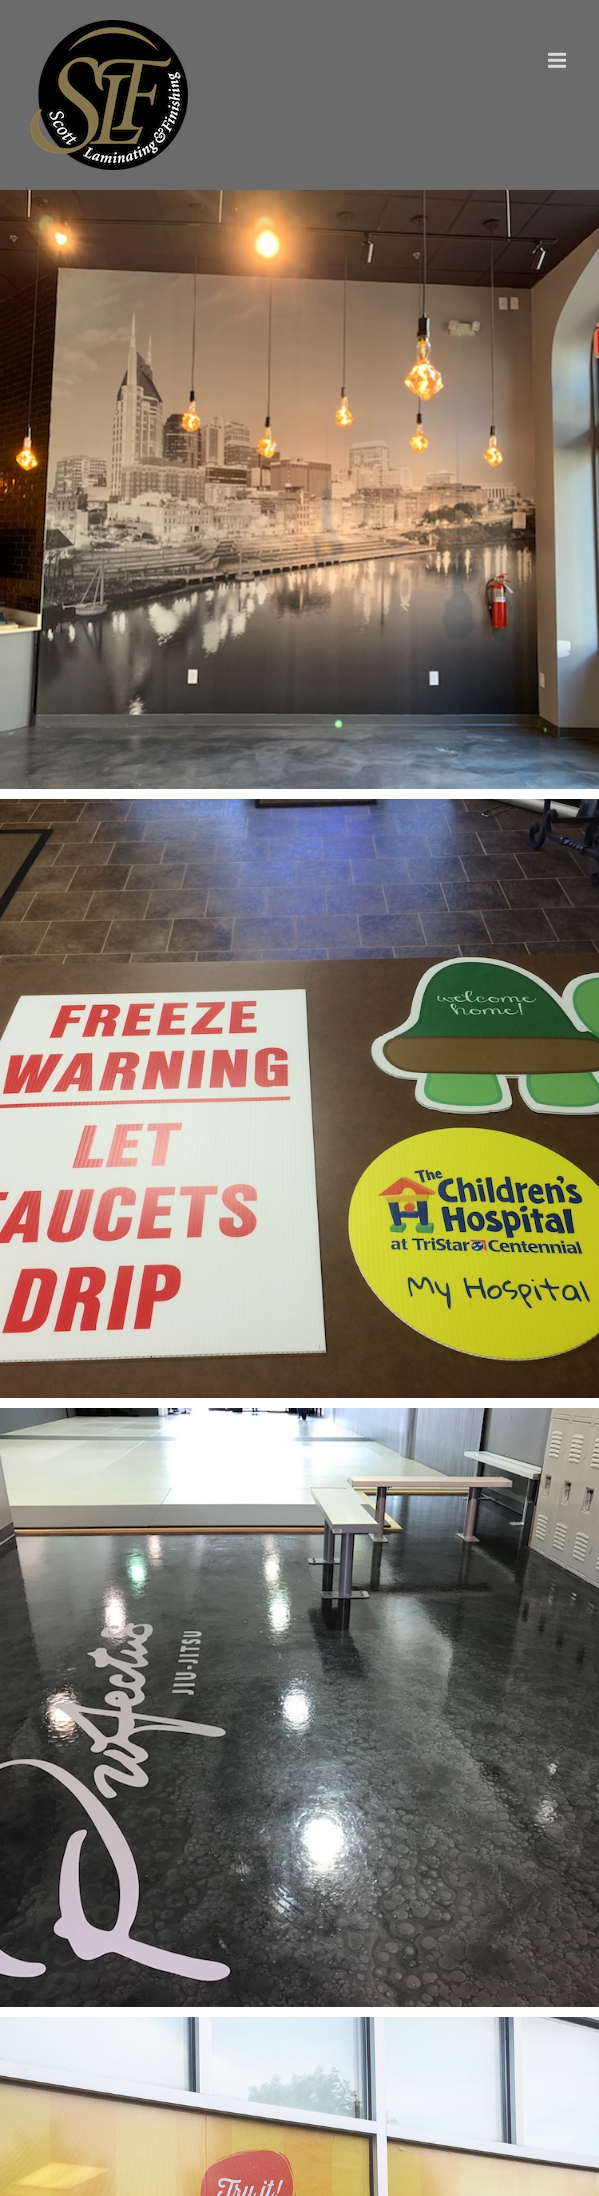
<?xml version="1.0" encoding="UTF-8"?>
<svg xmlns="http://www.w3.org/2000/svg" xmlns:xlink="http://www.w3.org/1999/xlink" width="599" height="2196">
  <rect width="100%" height="100%" fill="#ffffff" />
  <rect width="599" height="190" fill="#6b6b6b" />
  <image x="30" y="20" width="158" height="150" xlink:href="image1.png" />
  <image x="548" y="52" width="18" height="16" xlink:href="image2.png" />
  <image x="0" y="190" width="599" height="599" xlink:href="image3.png" />
  <image x="0" y="799" width="599" height="599" xlink:href="image4.png" />
  <image x="0" y="1408" width="599" height="599" xlink:href="image5.png" />
  <image x="0" y="2017" width="599" height="179" xlink:href="image6.png" />
</svg>
